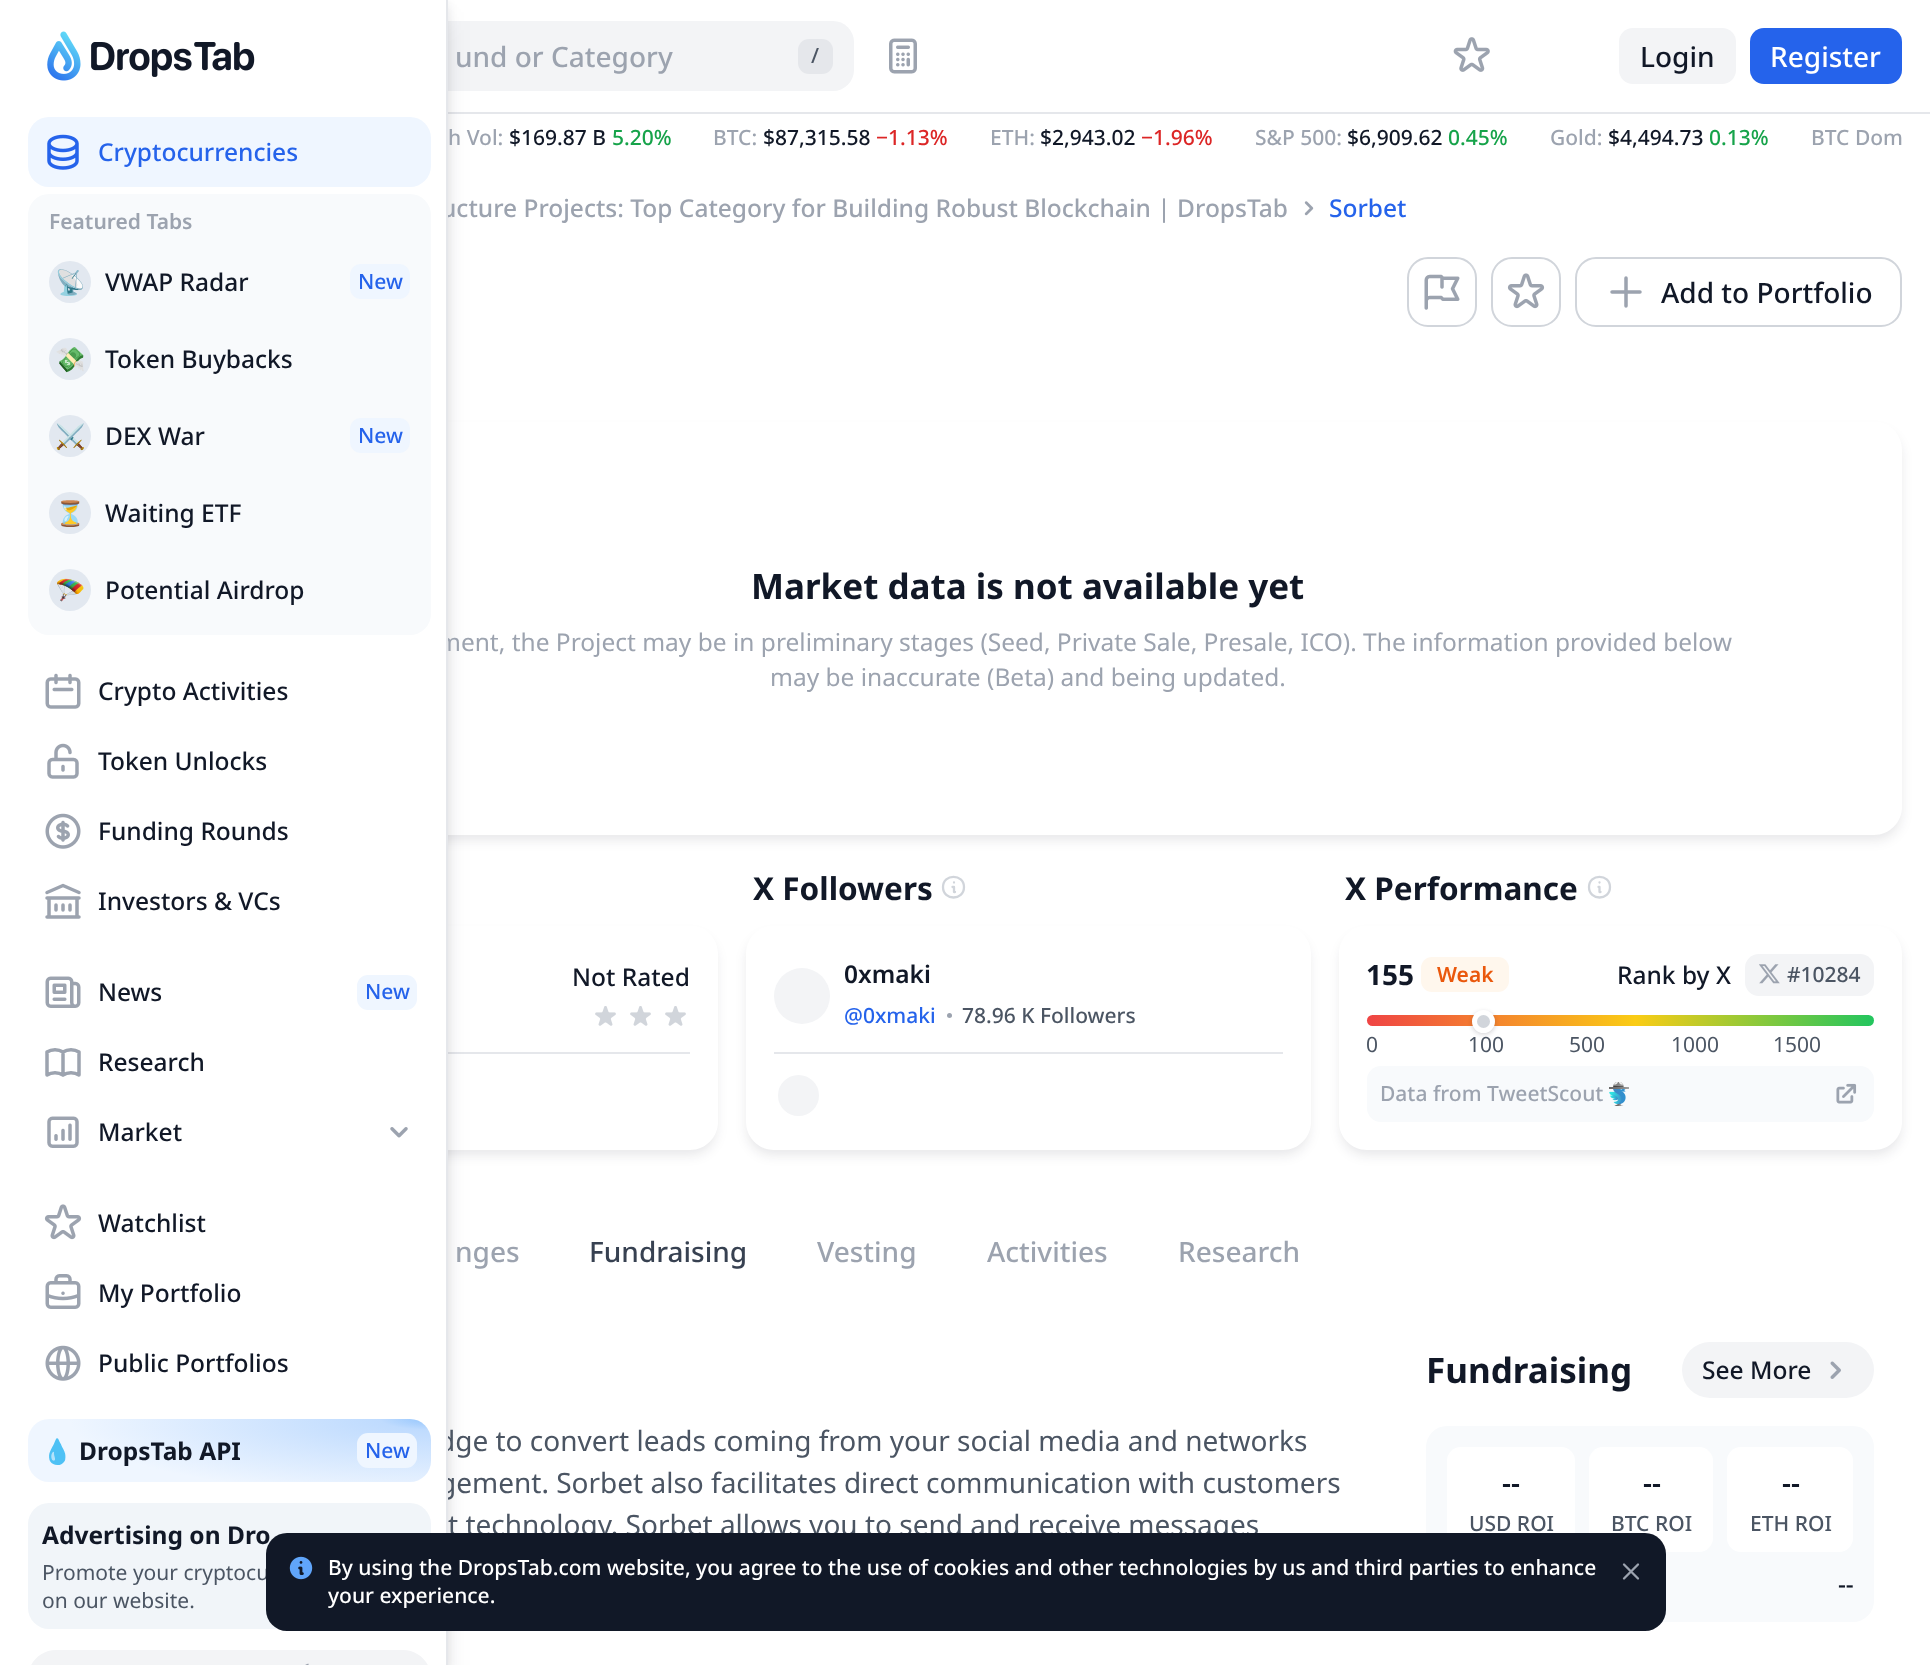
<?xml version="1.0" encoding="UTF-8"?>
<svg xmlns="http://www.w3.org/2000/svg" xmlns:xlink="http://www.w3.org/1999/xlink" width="1930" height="1665">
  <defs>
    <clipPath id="clip1"><path d="M 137 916 h 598 v 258 h -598 z m 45 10 h 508 c 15.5 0 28 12.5 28 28 v 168 c 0 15.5 -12.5 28 -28 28 h -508 c -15.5 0 -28 -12.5 -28 -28 v -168 c 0 -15.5 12.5 -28 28 -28 z" clip-rule="evenodd" /></clipPath>
    <clipPath id="clip2"><path d="M 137 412 h 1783 v 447 h -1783 z m 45 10 h 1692 c 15.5 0 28 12.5 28 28 v 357 c 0 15.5 -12.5 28 -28 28 h -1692 c -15.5 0 -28 -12.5 -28 -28 v -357 c 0 -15.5 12.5 -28 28 -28 z" clip-rule="evenodd" /></clipPath>
    <clipPath id="clip3"><path d="M 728 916 h 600 v 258 h -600 z m 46 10 h 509 c 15.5 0 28 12.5 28 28 v 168 c 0 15.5 -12.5 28 -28 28 h -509 c -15.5 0 -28 -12.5 -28 -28 v -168 c 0 -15.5 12.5 -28 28 -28 z" clip-rule="evenodd" /></clipPath>
    <clipPath id="clip4"><path d="M 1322 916 h 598 v 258 h -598 z m 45 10 h 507 c 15.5 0 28 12.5 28 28 v 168 c 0 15.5 -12.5 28 -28 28 h -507 c -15.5 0 -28 -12.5 -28 -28 v -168 c 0 -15.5 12.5 -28 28 -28 z" clip-rule="evenodd" /></clipPath>
    <linearGradient id="g1" gradientUnits="userSpaceOnUse" x1="1367" y1="1020" x2="1874" y2="1020"><stop offset="0" stop-color="#ef4444" /><stop offset="0.53" stop-color="#facc15" /><stop offset="1" stop-color="#22c55e" /></linearGradient>
    <clipPath id="clip5"><rect x="1710" y="124" width="59" height="28" /></clipPath>
    <radialGradient id="g2" gradientUnits="userSpaceOnUse" cx="0" cy="0" r="1" gradientTransform="matrix(362 0 0 77 431 1419)"><stop offset="0" stop-color="#93c5fd" /><stop offset="0.14" stop-color="#bfdbfe" /><stop offset="1" stop-color="#eff6ff" /></radialGradient>
  </defs>
  <rect width="100%" height="100%" fill="#ffffff" />
  <rect x="448" y="112" width="1482" height="2" fill="#e5e7eb" />
  <rect x="154" y="21" width="700" height="70" rx="21" fill="#f3f4f6" />
  <g clip-path="url(#clip1)">
    <rect x="156" y="935" width="560" height="220" rx="26" fill="#111827" fill-opacity="0.1" filter="blur(6px)" />
  </g>
  <rect x="448" y="1052" width="242" height="2" fill="#e5e7eb" />
  <rect y="4" width="448" height="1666" fill="#111827" fill-opacity="0.1" filter="blur(5px)" />
  <rect x="4" y="21" width="441" height="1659" fill="#111827" fill-opacity="0.1" filter="blur(13px)" />
  <rect x="798" y="39" width="35" height="35" rx="11" fill="#e5e7eb" />
  <image x="889" y="38" width="28" height="36" xlink:href="image14.png" />
  <image x="1453" y="37" width="37" height="35" xlink:href="image15.png" />
  <rect x="1619" y="28" width="117" height="56" rx="14" fill="#f3f4f6" />
  <rect x="1750" y="28" width="152" height="56" rx="14" fill="#2563eb" />
  <image x="1304" y="201" width="10" height="15" xlink:href="image16.png" />
  <rect x="1408" y="258" width="68" height="68" rx="20" fill="none" stroke="#d1d5db" stroke-width="2" />
  <image x="1424" y="274" width="36" height="36" xlink:href="image17.png" />
  <rect x="1492" y="258" width="68" height="68" rx="20" fill="none" stroke="#d1d5db" stroke-width="2" />
  <image x="1507" y="273" width="38" height="36" xlink:href="image10.png" />
  <rect x="1576" y="258" width="325" height="68" rx="20" fill="none" stroke="#d1d5db" stroke-width="2" />
  <path d="M 1626 278 v 28 m 14 -14 h -28" fill="none" stroke="#9ca3af" stroke-width="3.5" stroke-linecap="round" stroke-linejoin="round" />
  <g clip-path="url(#clip2)">
    <rect x="156" y="431" width="1745" height="409" rx="26" fill="#111827" fill-opacity="0.1" filter="blur(6px)" />
  </g>
  <image x="595" y="1006" width="21" height="20" xlink:href="image18.png" />
  <image x="630" y="1006" width="21" height="20" xlink:href="image18.png" />
  <image x="665" y="1006" width="21" height="20" xlink:href="image18.png" />
  <path d="M 955 892 h -1 v -5 h -1.5 m 1.5 -4.5 h 0 m 10 4.5 c 0 14 -21 14 -21 0 c 0 -13.5 21 -13.5 21 0 z" fill="none" stroke="#d1d5db" stroke-width="2.3" stroke-linecap="round" stroke-linejoin="round" />
  <g clip-path="url(#clip3)">
    <rect x="747" y="935" width="562" height="220" rx="26" fill="#111827" fill-opacity="0.1" filter="blur(6px)" />
  </g>
  <circle cx="802" cy="996" r="28" fill="#f3f4f6" />
  <circle cx="949.5" cy="1015.5" r="2.5" fill="#9ca3af" />
  <rect x="774" y="1052" width="509" height="2" fill="#e5e7eb" />
  <circle cx="798.5" cy="1095.5" r="22.5" fill="#f3f4f6" stroke="#ffffff" stroke-width="4" />
  <path d="M 1600.5 892 h -1 v -5 h -1 m 1 -4.5 h 0 m 10.5 4.5 c 0 14 -21 14 -21 0 c 0 -13.5 21 -13.5 21 0 z" fill="none" stroke="#d1d5db" stroke-width="2.3" stroke-linecap="round" stroke-linejoin="round" />
  <g clip-path="url(#clip4)">
    <rect x="1341" y="935" width="560" height="220" rx="26" fill="#111827" fill-opacity="0.1" filter="blur(6px)" />
  </g>
  <rect x="1421" y="957" width="88" height="35" rx="11" fill="#fff7ed" />
  <rect x="1745" y="954" width="129" height="42" rx="14" fill="#f3f4f6" />
  <image x="1759" y="964" width="21" height="20" xlink:href="image19.png" />
  <rect x="1367" y="1015" width="507" height="11" rx="5.5" fill="url(#g1)" />
  <rect x="1472" y="1012" width="23" height="22" rx="11" fill="#111827" fill-opacity="0.1" filter="blur(2px)" />
  <rect x="1472" y="1012" width="23" height="22" rx="11" fill="#111827" fill-opacity="0.1" filter="blur(2.5px)" />
  <circle cx="1483.5" cy="1021.5" r="9" fill="#d1d5db" stroke="#ffffff" stroke-width="5" />
  <rect x="1367" y="1066" width="507" height="56" rx="14" fill="#f8fafc" />
  <image x="1609" y="1082" width="20" height="24" xlink:href="image20.png" />
  <image x="1836" y="1083" width="21" height="21" xlink:href="image21.png" />
  <rect x="1682" y="1342" width="192" height="56" rx="28" fill="#f3f4f6" />
  <image x="1830" y="1361" width="11" height="18" xlink:href="image22.png" />
  <rect x="1426" y="1426" width="448" height="196" rx="21" fill="#f8fafc" />
  <rect x="1447" y="1447" width="128" height="105" rx="14" fill="#ffffff" />
  <rect x="1589" y="1447" width="124" height="105" rx="14" fill="#ffffff" />
  <rect x="1727" y="1447" width="126" height="105" rx="14" fill="#ffffff" />
  <text x="455" y="67" style="font-family: Noto Sans; font-size: 28px; font-weight: 500; fill: #9ca3af">und or Category</text>
  <text x="811" y="63" style="font-family: Noto Sans; font-size: 21px; font-weight: 500; fill: #4b5563">/</text>
  <text x="1640" y="67" style="font-family: Noto Sans; font-size: 28px; font-weight: 500; fill: #111827">Login</text>
  <text x="1770" y="67" style="font-family: Noto Sans; font-size: 28px; font-weight: 500; fill: #ffffff">Register</text>
  <text x="448" y="145" style="font-family: Noto Sans; font-size: 21px; font-weight: 500; fill: #9ca3af">h Vol:</text>
  <text x="509" y="145" style="font-family: Noto Sans; font-size: 21px; font-weight: 500; fill: #111827">$169.87 B</text>
  <text x="612" y="145" style="font-family: Noto Sans; font-size: 21px; font-weight: 500; fill: #16a34a">5.20%</text>
  <text x="713" y="145" style="font-family: Noto Sans; font-size: 21px; font-weight: 500; fill: #9ca3af">BTC:</text>
  <text x="763" y="145" style="font-family: Noto Sans; font-size: 21px; font-weight: 500; fill: #111827">$87,315.58</text>
  <text x="876" y="145" style="font-family: Noto Sans; font-size: 21px; font-weight: 500; fill: #dc2626">−1.13%</text>
  <text x="990" y="145" style="font-family: Noto Sans; font-size: 21px; font-weight: 500; fill: #9ca3af">ETH:</text>
  <text x="1040" y="145" style="font-family: Noto Sans; font-size: 21px; font-weight: 500; fill: #111827">$2,943.02</text>
  <text x="1141" y="145" style="font-family: Noto Sans; font-size: 21px; font-weight: 500; fill: #dc2626">−1.96%</text>
  <text x="1255" y="145" style="font-family: Noto Sans; font-size: 21px; font-weight: 500; fill: #9ca3af">S&amp;P 500:</text>
  <text x="1347" y="145" style="font-family: Noto Sans; font-size: 21px; font-weight: 500; fill: #111827">$6,909.62</text>
  <text x="1448" y="145" style="font-family: Noto Sans; font-size: 21px; font-weight: 500; fill: #16a34a">0.45%</text>
  <text x="1550" y="145" style="font-family: Noto Sans; font-size: 21px; font-weight: 500; fill: #9ca3af">Gold:</text>
  <text x="1608" y="145" style="font-family: Noto Sans; font-size: 21px; font-weight: 500; fill: #111827">$4,494.73</text>
  <g clip-path="url(#clip5)">
    <text x="1709" y="145" style="font-family: Noto Sans; font-size: 21px; font-weight: 500; fill: #16a34a">0.13%</text>
  </g>
  <text x="1811" y="145" style="font-family: Noto Sans; font-size: 21px; font-weight: 500; fill: #9ca3af">BTC Dom</text>
  <text x="441" y="217" style="font-family: Noto Sans; font-size: 24.5px; font-weight: 500; fill: #9ca3af">ucture Projects: Top Category for Building Robust Blockchain | DropsTab</text>
  <text x="1329" y="217" style="font-family: Noto Sans; font-size: 24.5px; font-weight: 500; fill: #2563eb">Sorbet</text>
  <text x="1661" y="303" style="font-family: Noto Sans; font-size: 28px; font-weight: 500; fill: #111827">Add to Portfolio</text>
  <text x="751" y="599" style="font-family: Noto Sans; font-size: 35px; font-weight: bold; fill: #111827">Market data is not available yet</text>
  <text x="438" y="651" style="font-family: Noto Sans; font-size: 24.5px; fill: #9ca3af">ment, the Project may be in preliminary stages (Seed, Private Sale, Presale, ICO). The information provided below</text>
  <text x="770" y="686" style="font-family: Noto Sans; font-size: 24.5px; fill: #9ca3af">may be inaccurate (Beta) and being updated.</text>
  <text x="572" y="986" style="font-family: Noto Sans; font-size: 24.5px; font-weight: 500; fill: #111827">Not Rated</text>
  <text x="753" y="900" style="font-family: Noto Sans; font-size: 31.5px; font-weight: bold; fill: #111827">X Followers</text>
  <text x="844" y="983" style="font-family: Noto Sans; font-size: 24.5px; font-weight: 600; fill: #111827">0xmaki</text>
  <text x="844" y="1023" style="font-family: Noto Sans; font-size: 21px; font-weight: 500; fill: #2563eb">@0xmaki</text>
  <text x="962" y="1023" style="font-family: Noto Sans; font-size: 21px; font-weight: 500; fill: #4b5563">78.96 K Followers</text>
  <text x="1345" y="900" style="font-family: Noto Sans; font-size: 31.5px; font-weight: bold; fill: #111827">X Performance</text>
  <text x="1366" y="985" style="font-family: Noto Sans; font-size: 28px; font-weight: bold; fill: #111827">155</text>
  <text x="1437" y="982" style="font-family: Noto Sans; font-size: 21px; font-weight: 600; fill: #ea580c">Weak</text>
  <text x="1617" y="984" style="font-family: Noto Sans; font-size: 24.5px; font-weight: 500; fill: #111827">Rank by X</text>
  <text x="1787" y="982" style="font-family: Noto Sans; font-size: 21px; font-weight: 500; fill: #4b5563">#10284</text>
  <text x="1366" y="1052" style="font-family: Noto Sans; font-size: 21px; fill: #4b5563">0</text>
  <text x="1468" y="1052" style="font-family: Noto Sans; font-size: 21px; fill: #4b5563">100</text>
  <text x="1569" y="1052" style="font-family: Noto Sans; font-size: 21px; fill: #4b5563">500</text>
  <text x="1671" y="1052" style="font-family: Noto Sans; font-size: 21px; fill: #4b5563">1000</text>
  <text x="1773" y="1052" style="font-family: Noto Sans; font-size: 21px; fill: #4b5563">1500</text>
  <text x="1380" y="1101" style="font-family: Noto Sans; font-size: 21px; font-weight: 500; fill: #9ca3af">Data from TweetScout</text>
  <text x="455" y="1262" style="font-family: Noto Sans; font-size: 28px; font-weight: 500; fill: #9ca3af">nges</text>
  <text x="589" y="1262" style="font-family: Noto Sans; font-size: 28px; font-weight: 500; fill: #374151">Fundraising</text>
  <text x="817" y="1262" style="font-family: Noto Sans; font-size: 28px; font-weight: 500; fill: #9ca3af">Vesting</text>
  <text x="987" y="1262" style="font-family: Noto Sans; font-size: 28px; font-weight: 500; fill: #9ca3af">Activities</text>
  <text x="1178" y="1262" style="font-family: Noto Sans; font-size: 28px; font-weight: 500; fill: #9ca3af">Research</text>
  <text x="438" y="1451" style="font-family: Noto Sans; font-size: 28px; fill: #4b5563">dge to convert leads coming from your social media and networks</text>
  <text x="439" y="1493" style="font-family: Noto Sans; font-size: 28px; fill: #4b5563">gement. Sorbet also facilitates direct communication with customers</text>
  <rect width="446" height="1665" fill="#ffffff" />
  <path d="M 56 1650 h 347 c 15.5 0 28 12.5 28 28 v -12 h -403 v 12 c 0 -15.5 12.5 -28 28 -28 z" fill="#f3f4f6" />
  <image x="305" y="1663" width="4" height="2" xlink:href="image13.png" />
  <image x="45" y="1345" width="36" height="36" xlink:href="image12.png" />
  <image x="45" y="1274" width="36" height="35" xlink:href="image11.png" />
  <image x="44" y="1204" width="38" height="36" xlink:href="image10.png" />
  <image x="390" y="1127" width="18" height="11" xlink:href="image9.png" />
  <image x="47" y="1116" width="32" height="32" xlink:href="image8.png" />
  <path d="M 63 1052 v 23 m 0 -23 c -4.5 -3 -11.5 -3 -16 0 v 23 c 4.5 -3 11.5 -3 16 0 m 0 -23 c 4.5 -3 11.5 -3 16 0 v 23 c -4.5 -3 -11.5 -3 -16 0" fill="none" stroke="#9ca3af" stroke-width="3.5" stroke-linecap="round" stroke-linejoin="round" />
  <image x="45" y="976" width="36" height="32" xlink:href="image7.png" />
  <path d="M 56 905 v 5 m 7 -5 v 5 m 7 -5 v 5 m -23 7 h 32 m -32 -19 h 32 m -32 -5.5 l 16 -7 l 16 7 m -30 5.5 h 28 v 19 h -28 z" fill="none" stroke="#9ca3af" stroke-width="3.5" stroke-linecap="round" stroke-linejoin="round" />
  <image x="45" y="813" width="36" height="36" xlink:href="image6.png" />
  <image x="47" y="743" width="32" height="36" xlink:href="image5.png" />
  <image x="45" y="673" width="36" height="36" xlink:href="image4.png" />
  <rect x="28" y="194" width="403" height="441" rx="21" fill="#f8fafc" />
  <text x="105" y="599" style="font-family: Noto Sans; font-size: 24.5px; font-weight: 500; fill: #111827">Potential Airdrop</text>
  <circle cx="70" cy="590" r="21" fill="#e2e8f0" />
  <text x="55" y="599" style="font-family: Noto Color Emoji; font-size: 24.5px; fill: #111827">🪂</text>
  <text x="105" y="522" style="font-family: Noto Sans; font-size: 24.5px; font-weight: 500; fill: #111827">Waiting ETF</text>
  <circle cx="70" cy="513" r="21" fill="#e2e8f0" />
  <text x="55" y="522" style="font-family: Noto Color Emoji; font-size: 24.5px; fill: #111827">⏳</text>
  <text x="105" y="445" style="font-family: Noto Sans; font-size: 24.5px; font-weight: 500; fill: #111827">DEX War</text>
  <rect x="350" y="418" width="60" height="35" rx="11" fill="#eff6ff" />
  <text x="358" y="443" style="font-family: Noto Sans; font-size: 21px; font-weight: 500; fill: #2563eb">New</text>
  <circle cx="70" cy="436" r="21" fill="#e2e8f0" />
  <text x="55" y="445" style="font-family: Noto Color Emoji; font-size: 24.5px; fill: #111827">⚔️</text>
  <text x="105" y="368" style="font-family: Noto Sans; font-size: 24.5px; font-weight: 500; fill: #111827">Token Buybacks</text>
  <circle cx="70" cy="359" r="21" fill="#e2e8f0" />
  <text x="55" y="368" style="font-family: Noto Color Emoji; font-size: 24.5px; fill: #111827">💸</text>
  <text x="105" y="291" style="font-family: Noto Sans; font-size: 24.5px; font-weight: 500; fill: #111827">VWAP Radar</text>
  <rect x="350" y="264" width="60" height="35" rx="11" fill="#eff6ff" />
  <text x="358" y="289" style="font-family: Noto Sans; font-size: 21px; font-weight: 500; fill: #2563eb">New</text>
  <circle cx="70" cy="282" r="21" fill="#e2e8f0" />
  <text x="55" y="291" style="font-family: Noto Color Emoji; font-size: 24.5px; fill: #111827">📡</text>
  <rect x="28" y="117" width="403" height="70" rx="21" fill="#eff6ff" />
  <image x="47" y="134" width="32" height="36" xlink:href="image3.png" />
  <image x="91" y="42" width="164" height="35" xlink:href="image2.png" />
  <rect x="28" y="1503" width="403" height="126" rx="21" fill="#f1f5f9" />
  <text x="42" y="1544" style="font-family: Noto Sans; font-size: 24.5px; font-weight: bold; fill: #111827">Advertising on Dro</text>
  <text x="98" y="1372" style="font-family: Noto Sans; font-size: 24.5px; font-weight: 500; fill: #111827">Public Portfolios</text>
  <text x="98" y="1302" style="font-family: Noto Sans; font-size: 24.5px; font-weight: 500; fill: #111827">My Portfolio</text>
  <text x="98" y="1232" style="font-family: Noto Sans; font-size: 24.5px; font-weight: 500; fill: #111827">Watchlist</text>
  <text x="98" y="1141" style="font-family: Noto Sans; font-size: 24.5px; font-weight: 500; fill: #111827">Market</text>
  <text x="98" y="1071" style="font-family: Noto Sans; font-size: 24.5px; font-weight: 500; fill: #111827">Research</text>
  <text x="98" y="1001" style="font-family: Noto Sans; font-size: 24.5px; font-weight: 500; fill: #111827">News</text>
  <rect x="357" y="975" width="60" height="35" rx="11" fill="#eff6ff" />
  <text x="365" y="999" style="font-family: Noto Sans; font-size: 21px; font-weight: 500; fill: #2563eb">New</text>
  <text x="98" y="910" style="font-family: Noto Sans; font-size: 24.5px; font-weight: 500; fill: #111827">Investors &amp; VCs</text>
  <text x="98" y="840" style="font-family: Noto Sans; font-size: 24.5px; font-weight: 500; fill: #111827">Funding Rounds</text>
  <text x="98" y="770" style="font-family: Noto Sans; font-size: 24.5px; font-weight: 500; fill: #111827">Token Unlocks</text>
  <text x="98" y="700" style="font-family: Noto Sans; font-size: 24.5px; font-weight: 500; fill: #111827">Crypto Activities</text>
  <text x="98" y="161" style="font-family: Noto Sans; font-size: 24.5px; font-weight: 500; fill: #2563eb">Cryptocurrencies</text>
  <text x="42" y="1608" style="font-family: Noto Sans; font-size: 21px; fill: #4b5563">on our website.</text>
  <text x="42" y="1580" style="font-family: Noto Sans; font-size: 21px; fill: #4b5563">Promote your cryptocu</text>
  <rect x="28" y="1419" width="403" height="63" rx="21" fill="url(#g2)" />
  <rect x="357" y="1433" width="60" height="35" rx="11" fill="#eff6ff" />
  <text x="365" y="1458" style="font-family: Noto Sans; font-size: 21px; font-weight: 500; fill: #2563eb">New</text>
  <text x="79" y="1460" style="font-family: Noto Sans; font-size: 24.5px; font-weight: bold; fill: #111827">DropsTab API</text>
  <text x="42" y="1460" style="font-family: Noto Color Emoji; font-size: 24.5px; font-weight: bold; fill: #111827">💧</text>
  <text x="49" y="229" style="font-family: Noto Sans; font-size: 21px; font-weight: 600; fill: #9ca3af">Featured Tabs</text>
  <image x="47" y="31" width="34" height="50" xlink:href="image1.png" />
  <rect x="446" width="2" height="1665" fill="#e5e7eb" />
  <text x="448" y="1535" style="font-family: Noto Sans; font-size: 28px; fill: #4b5563">t technology. Sorbet allows you to send and receive messages</text>
  <text x="1426" y="1383" style="font-family: Noto Sans; font-size: 35px; font-weight: bold; fill: #111827">Fundraising</text>
  <text x="1702" y="1379" style="font-family: Noto Sans; font-size: 24.5px; font-weight: 500; fill: #111827">See More</text>
  <text x="1502" y="1493" style="font-family: Noto Sans; font-size: 28px; font-weight: 600; fill: #111827">--</text>
  <text x="1469" y="1531" style="font-family: Noto Sans; font-size: 21px; font-weight: 500; fill: #4b5563">USD ROI</text>
  <text x="1643" y="1493" style="font-family: Noto Sans; font-size: 28px; font-weight: 600; fill: #111827">--</text>
  <text x="1611" y="1531" style="font-family: Noto Sans; font-size: 21px; font-weight: 500; fill: #4b5563">BTC ROI</text>
  <text x="1782" y="1493" style="font-family: Noto Sans; font-size: 28px; font-weight: 600; fill: #111827">--</text>
  <text x="1750" y="1531" style="font-family: Noto Sans; font-size: 21px; font-weight: 500; fill: #4b5563">ETH ROI</text>
  <text x="1838" y="1593" style="font-family: Noto Sans; font-size: 24.5px; font-weight: 500; fill: #111827">--</text>
  <rect x="266" y="1533" width="1400" height="98" rx="21" fill="#111827" />
  <image x="289" y="1556" width="24" height="24" xlink:href="image23.png" />
  <text x="328" y="1575" style="font-family: Noto Sans; font-size: 21px; font-weight: 500; fill: #ffffff">By using the DropsTab.com website, you agree to the use of cookies and other technologies by us and third parties to enhance</text>
  <text x="328" y="1603" style="font-family: Noto Sans; font-size: 21px; font-weight: 500; fill: #ffffff">your experience.</text>
  <path d="M 1624 1578.5 l 14 -14 m -14 0 l 14 14" fill="none" stroke="#9ca3af" stroke-width="2.3" stroke-linecap="round" stroke-linejoin="round" />
</svg>
